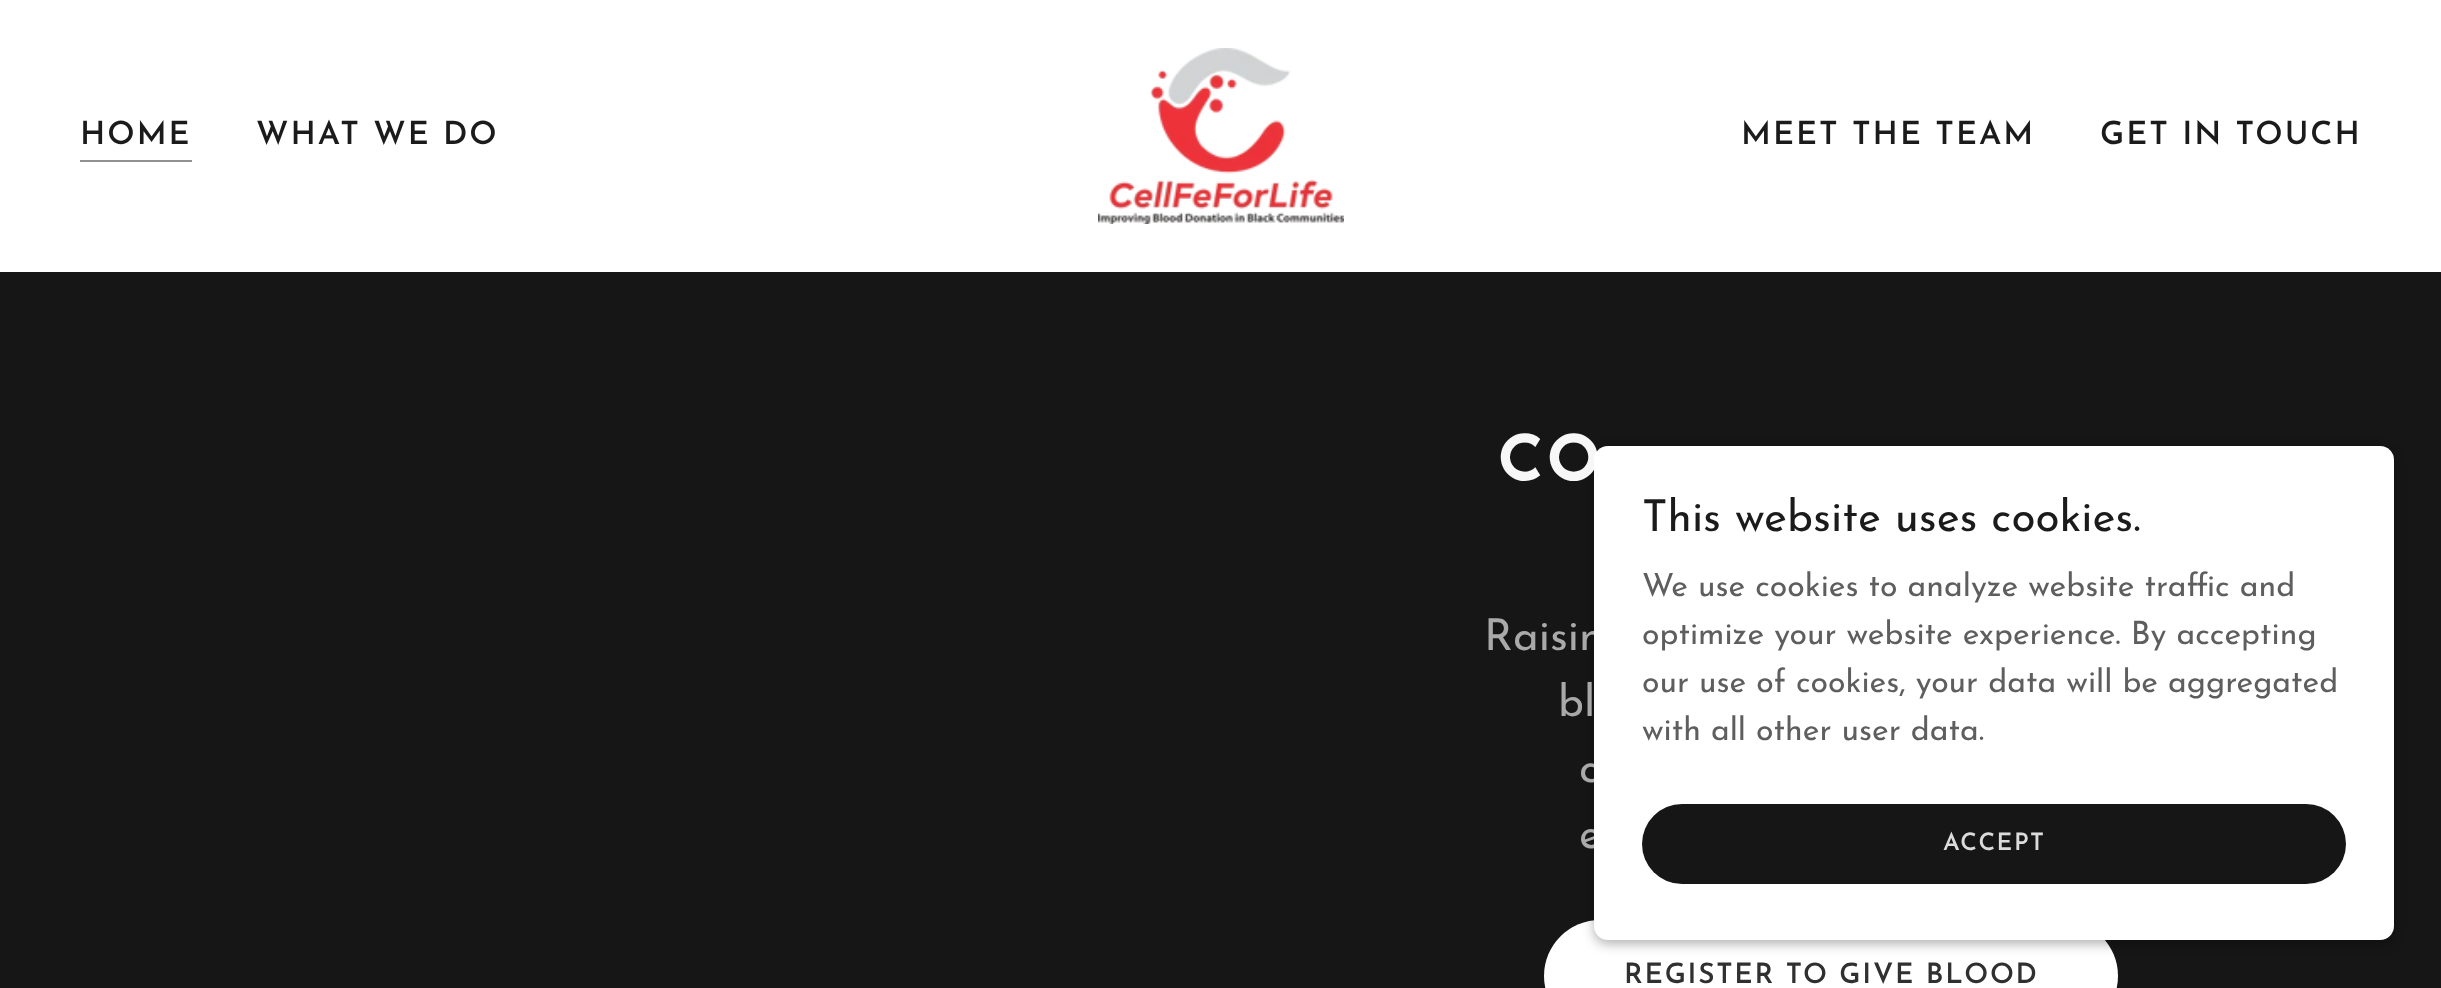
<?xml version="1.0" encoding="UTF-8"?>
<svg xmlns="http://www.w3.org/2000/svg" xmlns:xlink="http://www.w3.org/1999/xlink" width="2441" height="988">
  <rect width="100%" height="100%" fill="#161616" />
  <rect width="2441" height="272" fill="#ffffff" />
  <rect x="80" y="160" width="112" height="2" fill="#919191" />
  <image x="1098" y="48" width="246" height="176" xlink:href="image1.png" />
  <rect x="1544" y="920" width="574" height="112" rx="56" fill="#ffffff" />
  <rect x="1594" y="450" width="800" height="494" rx="14" fill="#000000" fill-opacity="0.3" filter="blur(6px)" />
  <text x="80" y="144" style="font-family: Josefin Sans; font-size: 32px; font-weight: 600; letter-spacing: 2px; fill: #1b1b1b">HOME</text>
  <text x="256" y="144" style="font-family: Josefin Sans; font-size: 32px; font-weight: 600; letter-spacing: 2px; fill: #1b1b1b">WHAT WE DO</text>
  <text x="1741" y="144" style="font-family: Josefin Sans; font-size: 32px; font-weight: 600; letter-spacing: 2px; fill: #1b1b1b">MEET THE TEAM</text>
  <text x="2100" y="144" style="font-family: Josefin Sans; font-size: 32px; font-weight: 600; letter-spacing: 2px; fill: #1b1b1b">GET IN TOUCH</text>
  <text x="1499" y="480" style="font-family: Righteous; font-size: 66px; letter-spacing: 8px; fill: #f7f7f7">CO</text>
  <text x="1484" y="650" style="font-family: Josefin Sans; font-size: 44px; fill: #a9a9a9">Raisin</text>
  <text x="1558" y="716" style="font-family: Josefin Sans; font-size: 44px; fill: #a9a9a9">bl</text>
  <text x="1579" y="782" style="font-family: Josefin Sans; font-size: 44px; fill: #a9a9a9">c</text>
  <text x="1579" y="848" style="font-family: Josefin Sans; font-size: 44px; fill: #a9a9a9">e</text>
  <text x="1624" y="983" style="font-family: Josefin Sans; font-size: 28px; font-weight: 600; letter-spacing: 1.75px; fill: #303030">REGISTER TO GIVE BLOOD</text>
  <rect x="1594" y="446" width="800" height="494" rx="14" fill="#ffffff" />
  <text x="1642" y="531" style="font-family: Josefin Sans; font-size: 44px; fill: #1b1b1b">This website uses cookies.</text>
  <text x="1642" y="596" style="font-family: Josefin Sans; font-size: 32px; fill: #5e5e5e">We use cookies to analyze website traffic and</text>
  <text x="1642" y="644" style="font-family: Josefin Sans; font-size: 32px; fill: #5e5e5e">optimize your website experience. By accepting</text>
  <text x="1642" y="692" style="font-family: Josefin Sans; font-size: 32px; fill: #5e5e5e">our use of cookies, your data will be aggregated</text>
  <text x="1642" y="740" style="font-family: Josefin Sans; font-size: 32px; fill: #5e5e5e">with all other user data.</text>
  <rect x="1642" y="804" width="704" height="80" rx="40" fill="#161616" />
  <text x="1943" y="850" style="font-family: Josefin Sans; font-size: 24px; font-weight: 600; letter-spacing: 1.5px; fill: #dbdbdb">ACCEPT</text>
</svg>
